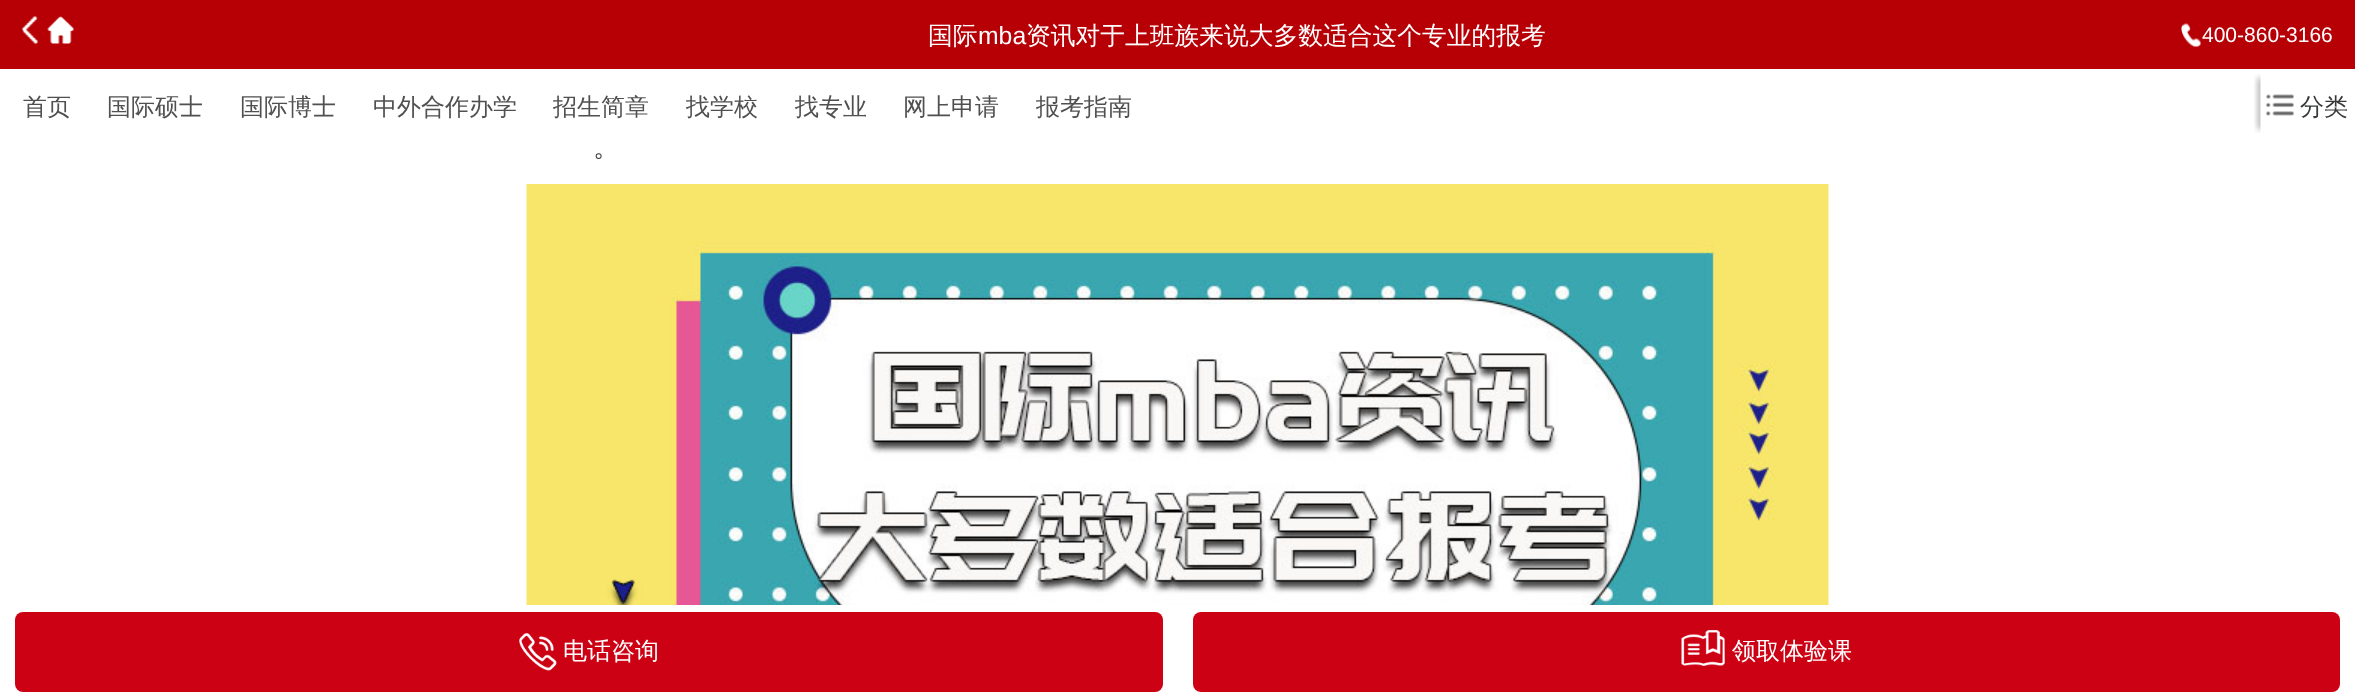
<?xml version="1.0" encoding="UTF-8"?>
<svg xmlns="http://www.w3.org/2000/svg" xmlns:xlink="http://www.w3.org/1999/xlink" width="2355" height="699">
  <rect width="100%" height="100%" fill="#ffffff" />
  <rect width="2355" height="69" fill="#b60005" />
  <image x="22" y="16" width="16" height="28" xlink:href="image1.png" />
  <image x="47" y="16" width="27" height="28" xlink:href="image2.png" />
  <image x="2181" y="23" width="20" height="24" xlink:href="image3.png" />
  <image x="2254" y="74" width="7" height="59" xlink:href="image4.png" />
  <image x="2266" y="94" width="28" height="22" xlink:href="image5.png" />
  <image x="526" y="184" width="1303" height="421" xlink:href="image6.png" />
  <rect x="15" y="612" width="1148" height="80" rx="8" fill="#cd0114" />
  <image x="519" y="633" width="38" height="38" xlink:href="image7.png" />
  <rect x="1193" y="612" width="1147" height="80" rx="8" fill="#cd0114" />
  <image x="1681" y="630" width="44" height="36" xlink:href="image8.png" />
  <text x="928" y="44" style="font-family: WenQuanYi Zen Hei; font-size: 24.75px; font-weight: 500; fill: #ffffff">国际</text>
  <text x="978" y="44" style="font-family: Liberation Sans; font-size: 24.75px; fill: #ffffff">mba</text>
  <text x="1026" y="44" style="font-family: WenQuanYi Zen Hei; font-size: 24.75px; font-weight: 500; fill: #ffffff">资讯对于上班族来说大多数适合这个专业的报考</text>
  <text x="2202" y="42" style="font-family: Liberation Sans; font-size: 21px; fill: #ffffff">400-860-3166</text>
  <text x="23" y="115" style="font-family: WenQuanYi Zen Hei; font-size: 24px; font-weight: 500; fill: #505050">首页</text>
  <text x="107" y="115" style="font-family: WenQuanYi Zen Hei; font-size: 24px; font-weight: 500; fill: #505050">国际硕士</text>
  <text x="240" y="115" style="font-family: WenQuanYi Zen Hei; font-size: 24px; font-weight: 500; fill: #505050">国际博士</text>
  <text x="373" y="115" style="font-family: WenQuanYi Zen Hei; font-size: 24px; font-weight: 500; fill: #505050">中外合作办学</text>
  <text x="553" y="115" style="font-family: WenQuanYi Zen Hei; font-size: 24px; font-weight: 500; fill: #505050">招生简章</text>
  <text x="686" y="115" style="font-family: WenQuanYi Zen Hei; font-size: 24px; font-weight: 500; fill: #505050">找学校</text>
  <text x="795" y="115" style="font-family: WenQuanYi Zen Hei; font-size: 24px; font-weight: 500; fill: #505050">找专业</text>
  <text x="903" y="115" style="font-family: WenQuanYi Zen Hei; font-size: 24px; font-weight: 500; fill: #505050">网上申请</text>
  <text x="1036" y="115" style="font-family: WenQuanYi Zen Hei; font-size: 24px; font-weight: 500; fill: #505050">报考指南</text>
  <text x="2300" y="115" style="font-family: WenQuanYi Zen Hei; font-size: 24px; font-weight: 500; fill: #373838">分类</text>
  <text x="593" y="156" style="font-family: WenQuanYi Zen Hei; font-size: 27px; font-weight: 500; fill: #373838">。</text>
  <text x="563" y="659" style="font-family: WenQuanYi Zen Hei; font-size: 24px; font-weight: 500; fill: #ffffff">电话咨询</text>
  <text x="1732" y="659" style="font-family: WenQuanYi Zen Hei; font-size: 24px; font-weight: 500; fill: #ffffff">领取体验课</text>
</svg>
